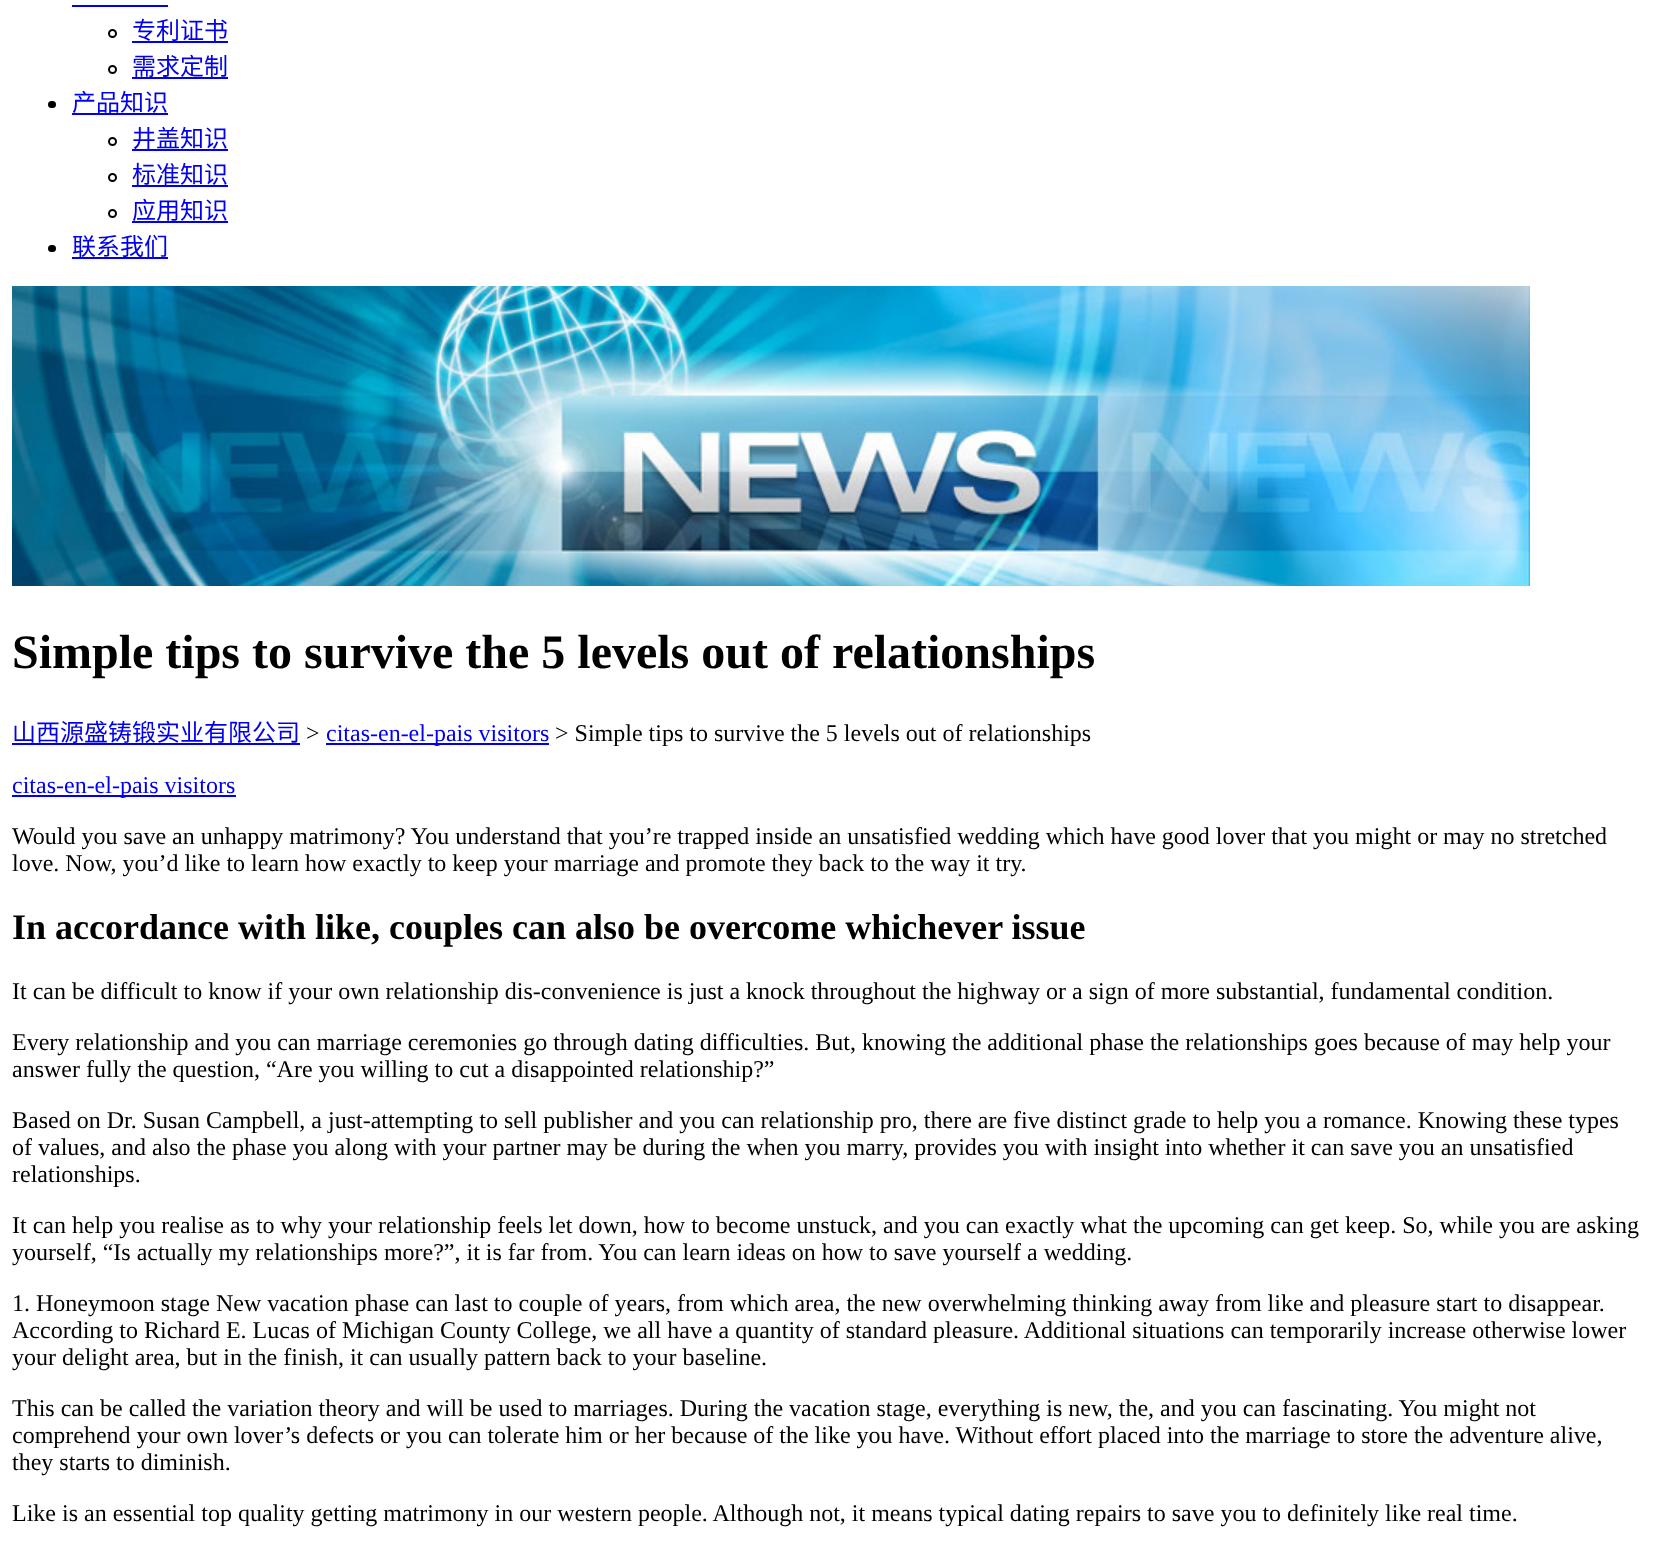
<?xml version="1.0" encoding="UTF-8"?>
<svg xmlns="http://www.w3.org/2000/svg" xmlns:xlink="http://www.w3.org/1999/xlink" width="1653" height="1567">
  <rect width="100%" height="100%" fill="#ffffff" />
  <rect x="72" y="5" width="96" height="2" fill="#0000ee" />
  <circle cx="112.5" cy="33.5" r="3.5" fill="none" stroke="#000000" stroke-width="2" />
  <rect x="132" y="41" width="96" height="2" fill="#0000ee" />
  <circle cx="112.5" cy="69.5" r="3.5" fill="none" stroke="#000000" stroke-width="2" />
  <rect x="132" y="77" width="96" height="2" fill="#0000ee" />
  <rect x="48" y="101" width="8" height="7" rx="3.5" fill="#000000" />
  <rect x="72" y="113" width="96" height="2" fill="#0000ee" />
  <circle cx="112.5" cy="141.5" r="3.5" fill="none" stroke="#000000" stroke-width="2" />
  <rect x="132" y="149" width="96" height="2" fill="#0000ee" />
  <circle cx="112.5" cy="177.5" r="3.5" fill="none" stroke="#000000" stroke-width="2" />
  <rect x="132" y="185" width="96" height="2" fill="#0000ee" />
  <circle cx="112.5" cy="213.5" r="3.5" fill="none" stroke="#000000" stroke-width="2" />
  <rect x="132" y="221" width="96" height="2" fill="#0000ee" />
  <rect x="48" y="245" width="8" height="7" rx="3.5" fill="#000000" />
  <rect x="72" y="257" width="96" height="2" fill="#0000ee" />
  <image x="12" y="286" width="1518" height="300" xlink:href="image1.png" />
  <rect x="12" y="743" width="288" height="2" fill="#0000ee" />
  <rect x="326" y="743" width="223" height="2" fill="#0000ee" />
  <rect x="12" y="795" width="224" height="2" fill="#0000ee" />
  <text x="132" y="39" style="font-family: Noto Sans CJK SC; font-size: 24px; fill: #0000ee">专利证书</text>
  <text x="132" y="75" style="font-family: Noto Sans CJK SC; font-size: 24px; fill: #0000ee">需求定制</text>
  <text x="72" y="111" style="font-family: Noto Sans CJK SC; font-size: 24px; fill: #0000ee">产品知识</text>
  <text x="132" y="147" style="font-family: Noto Sans CJK SC; font-size: 24px; fill: #0000ee">井盖知识</text>
  <text x="132" y="183" style="font-family: Noto Sans CJK SC; font-size: 24px; fill: #0000ee">标准知识</text>
  <text x="132" y="219" style="font-family: Noto Sans CJK SC; font-size: 24px; fill: #0000ee">应用知识</text>
  <text x="72" y="255" style="font-family: Noto Sans CJK SC; font-size: 24px; fill: #0000ee">联系我们</text>
  <text x="12" y="668" style="font-family: Liberation Serif; font-size: 48px; font-weight: bold; fill: #000000">Simple tips to survive the 5 levels out of relationships</text>
  <text x="12" y="741" style="font-family: Noto Sans CJK SC; font-size: 24px; fill: #0000ee">山西源盛铸锻实业有限公司</text>
  <text x="306" y="741" style="font-family: Liberation Serif; font-size: 24px; fill: #000000">&gt;</text>
  <text x="326" y="741" style="font-family: Liberation Serif; font-size: 24px; fill: #0000ee">citas-en-el-pais visitors</text>
  <text x="555" y="741" style="font-family: Liberation Serif; font-size: 24px; fill: #000000">&gt; Simple tips to survive the 5 levels out of relationships</text>
  <text x="12" y="793" style="font-family: Liberation Serif; font-size: 24px; fill: #0000ee">citas-en-el-pais visitors</text>
  <text x="12" y="844" style="font-family: Liberation Serif; font-size: 24px; fill: #000000">Would you save an unhappy matrimony? You understand that you’re trapped inside an unsatisfied wedding which have good lover that you might or may no stretched</text>
  <text x="12" y="871" style="font-family: Liberation Serif; font-size: 24px; fill: #000000">love. Now, you’d like to learn how exactly to keep your marriage and promote they back to the way it try.</text>
  <text x="12" y="939" style="font-family: Liberation Serif; font-size: 36px; font-weight: bold; fill: #000000">In accordance with like, couples can also be overcome whichever issue</text>
  <text x="12" y="999" style="font-family: Liberation Serif; font-size: 24px; fill: #000000">It can be difficult to know if your own relationship dis-convenience is just a knock throughout the highway or a sign of more substantial, fundamental condition.</text>
  <text x="12" y="1050" style="font-family: Liberation Serif; font-size: 24px; fill: #000000">Every relationship and you can marriage ceremonies go through dating difficulties. But, knowing the additional phase the relationships goes because of may help your</text>
  <text x="12" y="1077" style="font-family: Liberation Serif; font-size: 24px; fill: #000000">answer fully the question, “Are you willing to cut a disappointed relationship?”</text>
  <text x="12" y="1128" style="font-family: Liberation Serif; font-size: 24px; fill: #000000">Based on Dr. Susan Campbell, a just-attempting to sell publisher and you can relationship pro, there are five distinct grade to help you a romance. Knowing these types</text>
  <text x="12" y="1155" style="font-family: Liberation Serif; font-size: 24px; fill: #000000">of values, and also the phase you along with your partner may be during the when you marry, provides you with insight into whether it can save you an unsatisfied</text>
  <text x="12" y="1182" style="font-family: Liberation Serif; font-size: 24px; fill: #000000">relationships.</text>
  <text x="12" y="1233" style="font-family: Liberation Serif; font-size: 24px; fill: #000000">It can help you realise as to why your relationship feels let down, how to become unstuck, and you can exactly what the upcoming can get keep. So, while you are asking</text>
  <text x="12" y="1260" style="font-family: Liberation Serif; font-size: 24px; fill: #000000">yourself, “Is actually my relationships more?”, it is far from. You can learn ideas on how to save yourself a wedding.</text>
  <text x="12" y="1311" style="font-family: Liberation Serif; font-size: 24px; fill: #000000">1. Honeymoon stage New vacation phase can last to couple of years, from which area, the new overwhelming thinking away from like and pleasure start to disappear.</text>
  <text x="12" y="1338" style="font-family: Liberation Serif; font-size: 24px; fill: #000000">According to Richard E. Lucas of Michigan County College, we all have a quantity of standard pleasure. Additional situations can temporarily increase otherwise lower</text>
  <text x="12" y="1365" style="font-family: Liberation Serif; font-size: 24px; fill: #000000">your delight area, but in the finish, it can usually pattern back to your baseline.</text>
  <text x="12" y="1416" style="font-family: Liberation Serif; font-size: 24px; fill: #000000">This can be called the variation theory and will be used to marriages. During the vacation stage, everything is new, the, and you can fascinating. You might not</text>
  <text x="12" y="1443" style="font-family: Liberation Serif; font-size: 24px; fill: #000000">comprehend your own lover’s defects or you can tolerate him or her because of the like you have. Without effort placed into the marriage to store the adventure alive,</text>
  <text x="12" y="1470" style="font-family: Liberation Serif; font-size: 24px; fill: #000000">they starts to diminish.</text>
  <text x="12" y="1521" style="font-family: Liberation Serif; font-size: 24px; fill: #000000">Like is an essential top quality getting matrimony in our western people. Although not, it means typical dating repairs to save you to definitely like real time.</text>
</svg>
